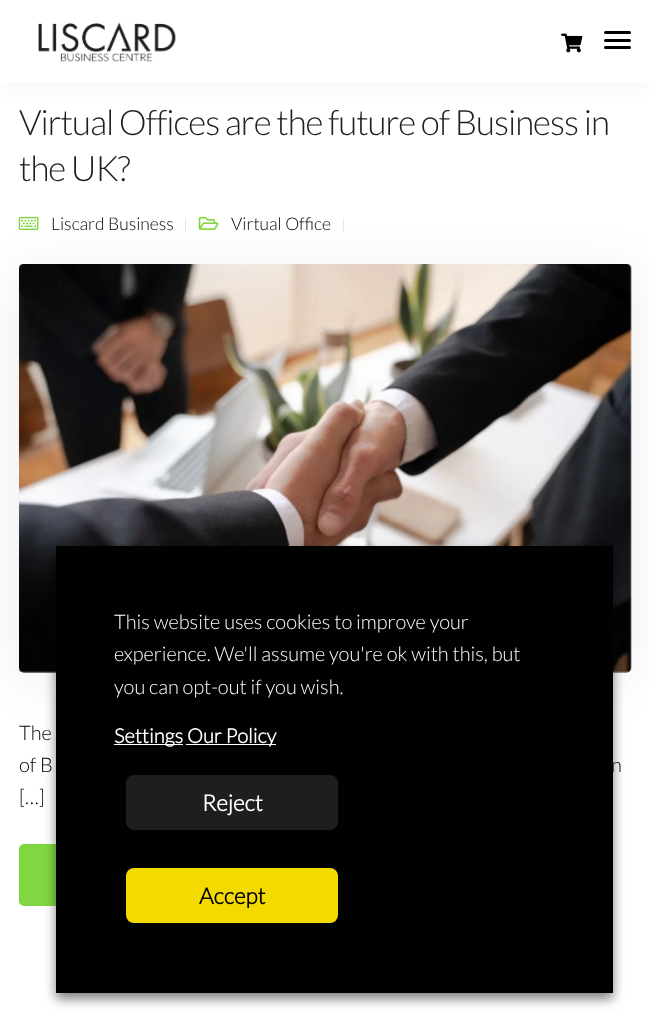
<?xml version="1.0" encoding="UTF-8"?>
<svg xmlns="http://www.w3.org/2000/svg" xmlns:xlink="http://www.w3.org/1999/xlink" width="649" height="1029">
  <rect width="100%" height="100%" fill="#ffffff" />
  <rect width="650" height="83" fill="#000000" fill-opacity="0.05" filter="blur(12.5px)" />
  <rect width="649" height="83" fill="#ffffff" />
  <image x="38" y="22" width="138" height="40" xlink:href="image1.png" />
  <image x="561" y="33" width="22" height="20" xlink:href="image2.png" />
  <rect x="604" y="31" width="27" height="3" rx="1.5" fill="#000000" />
  <rect x="604" y="39" width="27" height="3" rx="1.5" fill="#000000" />
  <rect x="604" y="46" width="27" height="3" rx="1.5" fill="#000000" />
  <rect x="19" y="270" width="612" height="409" rx="5" fill="#000000" fill-opacity="0.07" filter="blur(25px)" />
  <image x="19" y="264" width="613" height="409" xlink:href="image3.png" />
  <image x="18" y="216" width="21" height="14" xlink:href="image4.png" />
  <rect x="185" y="218" width="1" height="15" fill="#e5e7f2" />
  <image x="198" y="216" width="21" height="14" xlink:href="image5.png" />
  <rect x="343" y="218" width="1" height="15" fill="#e5e7f2" />
  <rect x="20.5" y="845.5" width="209" height="59" rx="3.5" fill="#81d742" stroke="#81d742" stroke-width="3" />
  <rect x="56" y="553" width="557" height="446" fill="#000000" fill-opacity="0.5" filter="blur(6px)" />
  <text x="19" y="135" style="font-family: Lato; font-size: 35px; font-weight: 300; letter-spacing: -1.05px; fill: #1f1f1f">Virtual Offices are the future of Business in</text>
  <text x="19" y="181" style="font-family: Lato; font-size: 35px; font-weight: 300; letter-spacing: -1.05px; fill: #1f1f1f">the UK?</text>
  <text x="51" y="230" style="font-family: Lato; font-size: 17.5px; font-weight: 300; fill: #000000">Liscard Business</text>
  <text x="231" y="230" style="font-family: Lato; font-size: 17.5px; font-weight: 300; fill: #000000">Virtual Office</text>
  <text x="19" y="740" style="font-family: Lato; font-size: 20px; font-weight: 300; fill: #000000">The</text>
  <text x="19" y="772" style="font-family: Lato; font-size: 20px; font-weight: 300; fill: #000000">of B</text>
  <text x="611" y="772" style="font-family: Lato; font-size: 20px; font-weight: 300; fill: #000000">n</text>
  <text x="19" y="804" style="font-family: Lato; font-size: 20px; font-weight: 300; fill: #000000">[…]</text>
  <rect x="56" y="546" width="557" height="447" fill="#010101" />
  <text x="114" y="629" style="font-family: Lato; font-size: 20px; font-weight: 300; fill: #ffffff">This website uses cookies to improve your</text>
  <text x="114" y="661" style="font-family: Lato; font-size: 20px; font-weight: 300; fill: #ffffff">experience. We'll assume you're ok with this, but</text>
  <text x="114" y="694" style="font-family: Lato; font-size: 20px; font-weight: 300; fill: #ffffff">you can opt-out if you wish.</text>
  <rect x="114" y="744" width="69" height="1" fill="#ffffff" />
  <text x="114" y="743" style="font-family: Lato; font-size: 20px; font-weight: bold; fill: #ffffff">Settings</text>
  <rect x="186" y="744" width="90" height="1" fill="#ffffff" />
  <text x="187" y="743" style="font-family: Lato; font-size: 20px; font-weight: bold; fill: #ffffff">Our Policy</text>
  <rect x="126" y="775" width="212" height="55" rx="8" fill="#1e1e1e" />
  <text x="202" y="811" style="font-family: Lato; font-size: 22.5px; font-weight: bold; fill: #ffffff">Reject</text>
  <rect x="126" y="868" width="212" height="55" rx="8" fill="#f3da00" />
  <text x="199" y="904" style="font-family: Lato; font-size: 22.5px; font-weight: bold; fill: #000000">Accept</text>
</svg>
